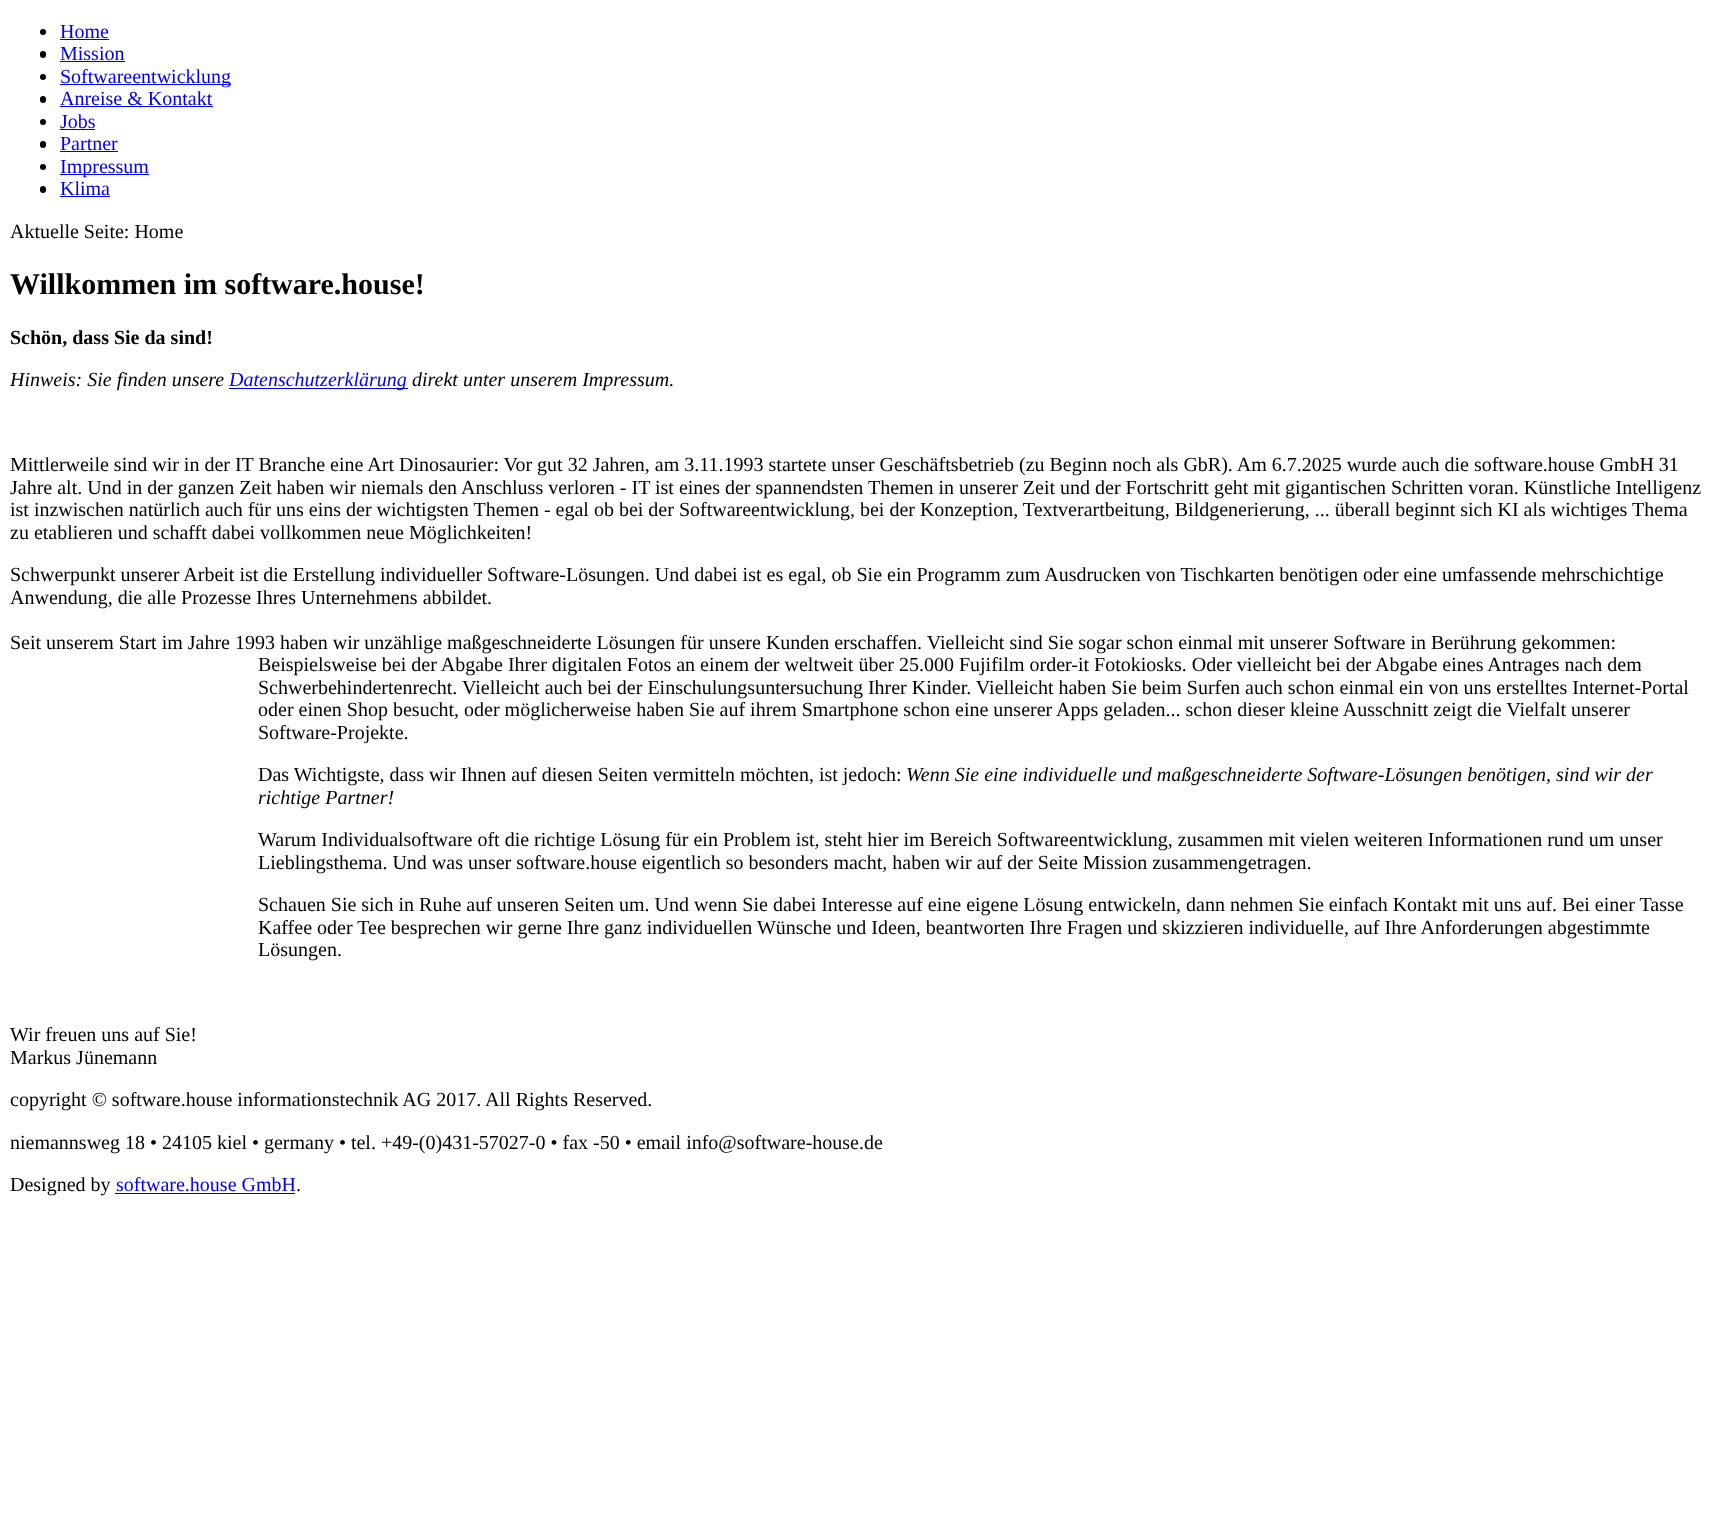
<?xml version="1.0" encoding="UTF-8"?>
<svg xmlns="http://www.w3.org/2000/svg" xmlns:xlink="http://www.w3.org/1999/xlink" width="1714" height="1527">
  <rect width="100%" height="100%" fill="#ffffff" />
  <circle cx="43" cy="32" r="3" fill="#000000" />
  <rect x="60" y="39" width="49" height="1" fill="#0000ee" />
  <rect x="40" y="51" width="6" height="7" rx="3" fill="#000000" />
  <rect x="60" y="61" width="65" height="1" fill="#0000ee" />
  <circle cx="43" cy="77" r="3" fill="#000000" />
  <rect x="60" y="84" width="171" height="1" fill="#0000ee" />
  <rect x="40" y="96" width="6" height="7" rx="3" fill="#000000" />
  <rect x="60" y="106" width="153" height="1" fill="#0000ee" />
  <circle cx="43" cy="122" r="3" fill="#000000" />
  <rect x="60" y="129" width="35" height="1" fill="#0000ee" />
  <rect x="40" y="141" width="6" height="7" rx="3" fill="#000000" />
  <rect x="60" y="151" width="58" height="1" fill="#0000ee" />
  <circle cx="43" cy="167" r="3" fill="#000000" />
  <rect x="60" y="174" width="89" height="1" fill="#0000ee" />
  <rect x="40" y="186" width="6" height="7" rx="3" fill="#000000" />
  <rect x="60" y="196" width="50" height="1" fill="#0000ee" />
  <rect x="229" y="388" width="179" height="1" fill="#0000ee" />
  <rect x="115" y="1193" width="180" height="1" fill="#0000ee" />
  <text x="60" y="38" style="font-family: Liberation Serif; font-size: 20px; fill: #0000ee">Home</text>
  <text x="60" y="60" style="font-family: Liberation Serif; font-size: 20px; fill: #0000ee">Mission</text>
  <text x="60" y="83" style="font-family: Liberation Serif; font-size: 20px; fill: #0000ee">Softwareentwicklung</text>
  <text x="60" y="105" style="font-family: Liberation Serif; font-size: 20px; fill: #0000ee">Anreise &amp; Kontakt</text>
  <text x="60" y="128" style="font-family: Liberation Serif; font-size: 20px; fill: #0000ee">Jobs</text>
  <text x="60" y="150" style="font-family: Liberation Serif; font-size: 20px; fill: #0000ee">Partner</text>
  <text x="60" y="173" style="font-family: Liberation Serif; font-size: 20px; fill: #0000ee">Impressum</text>
  <text x="60" y="195" style="font-family: Liberation Serif; font-size: 20px; fill: #0000ee">Klima</text>
  <text x="10" y="238" style="font-family: Liberation Serif; font-size: 20px; fill: #000000">Aktuelle Seite: Home</text>
  <text x="10" y="294" style="font-family: Liberation Serif; font-size: 30px; font-weight: bold; fill: #000000">Willkommen im software.house!</text>
  <text x="10" y="344" style="font-family: Liberation Serif; font-size: 20px; font-weight: bold; fill: #000000">Schön, dass Sie da sind!</text>
  <text x="10" y="386" style="font-family: Liberation Serif; font-size: 20px; font-style: italic; fill: #000000">Hinweis: Sie finden unsere</text>
  <text x="229" y="386" style="font-family: Liberation Serif; font-size: 20px; font-style: italic; fill: #0000ee">Datenschutzerklärung</text>
  <text x="412" y="386" style="font-family: Liberation Serif; font-size: 20px; font-style: italic; fill: #000000">direkt unter unserem Impressum.</text>
  <text x="10" y="471" style="font-family: Liberation Serif; font-size: 20px; fill: #000000">Mittlerweile sind wir in der IT Branche eine Art Dinosaurier: Vor gut 32 Jahren, am 3.11.1993 startete unser Geschäftsbetrieb (zu Beginn noch als GbR). Am 6.7.2025 wurde auch die software.house GmbH 31</text>
  <text x="10" y="494" style="font-family: Liberation Serif; font-size: 20px; fill: #000000">Jahre alt. Und in der ganzen Zeit haben wir niemals den Anschluss verloren - IT ist eines der spannendsten Themen in unserer Zeit und der Fortschritt geht mit gigantischen Schritten voran. Künstliche Intelligenz</text>
  <text x="10" y="516" style="font-family: Liberation Serif; font-size: 20px; fill: #000000">ist inzwischen natürlich auch für uns eins der wichtigsten Themen - egal ob bei der Softwareentwicklung, bei der Konzeption, Textverartbeitung, Bildgenerierung, ... überall beginnt sich KI als wichtiges Thema</text>
  <text x="10" y="539" style="font-family: Liberation Serif; font-size: 20px; fill: #000000">zu etablieren und schafft dabei vollkommen neue Möglichkeiten!</text>
  <text x="10" y="581" style="font-family: Liberation Serif; font-size: 20px; fill: #000000">Schwerpunkt unserer Arbeit ist die Erstellung individueller Software-Lösungen. Und dabei ist es egal, ob Sie ein Programm zum Ausdrucken von Tischkarten benötigen oder eine umfassende mehrschichtige</text>
  <text x="10" y="604" style="font-family: Liberation Serif; font-size: 20px; fill: #000000">Anwendung, die alle Prozesse Ihres Unternehmens abbildet.</text>
  <text x="10" y="649" style="font-family: Liberation Serif; font-size: 20px; fill: #000000">Seit unserem Start im Jahre 1993 haben wir unzählige maßgeschneiderte Lösungen für unsere Kunden erschaffen. Vielleicht sind Sie sogar schon einmal mit unserer Software in Berührung gekommen:</text>
  <text x="258" y="671" style="font-family: Liberation Serif; font-size: 20px; fill: #000000">Beispielsweise bei der Abgabe Ihrer digitalen Fotos an einem der weltweit über 25.000 Fujifilm order-it Fotokiosks. Oder vielleicht bei der Abgabe eines Antrages nach dem</text>
  <text x="258" y="694" style="font-family: Liberation Serif; font-size: 20px; fill: #000000">Schwerbehindertenrecht. Vielleicht auch bei der Einschulungsuntersuchung Ihrer Kinder. Vielleicht haben Sie beim Surfen auch schon einmal ein von uns erstelltes Internet-Portal</text>
  <text x="258" y="716" style="font-family: Liberation Serif; font-size: 20px; fill: #000000">oder einen Shop besucht, oder möglicherweise haben Sie auf ihrem Smartphone schon eine unserer Apps geladen... schon dieser kleine Ausschnitt zeigt die Vielfalt unserer</text>
  <text x="258" y="739" style="font-family: Liberation Serif; font-size: 20px; fill: #000000">Software-Projekte.</text>
  <text x="258" y="781" style="font-family: Liberation Serif; font-size: 20px; fill: #000000">Das Wichtigste, dass wir Ihnen auf diesen Seiten vermitteln möchten, ist jedoch:</text>
  <text x="906" y="781" style="font-family: Liberation Serif; font-size: 20px; font-style: italic; fill: #000000">Wenn Sie eine individuelle und maßgeschneiderte Software-Lösungen benötigen, sind wir der</text>
  <text x="258" y="804" style="font-family: Liberation Serif; font-size: 20px; font-style: italic; fill: #000000">richtige Partner!</text>
  <text x="258" y="846" style="font-family: Liberation Serif; font-size: 20px; fill: #000000">Warum Individualsoftware oft die richtige Lösung für ein Problem ist, steht hier im Bereich Softwareentwicklung, zusammen mit vielen weiteren Informationen rund um unser</text>
  <text x="258" y="869" style="font-family: Liberation Serif; font-size: 20px; fill: #000000">Lieblingsthema. Und was unser software.house eigentlich so besonders macht, haben wir auf der Seite Mission zusammengetragen.</text>
  <text x="258" y="911" style="font-family: Liberation Serif; font-size: 20px; fill: #000000">Schauen Sie sich in Ruhe auf unseren Seiten um. Und wenn Sie dabei Interesse auf eine eigene Lösung entwickeln, dann nehmen Sie einfach Kontakt mit uns auf. Bei einer Tasse</text>
  <text x="258" y="934" style="font-family: Liberation Serif; font-size: 20px; fill: #000000">Kaffee oder Tee besprechen wir gerne Ihre ganz individuellen Wünsche und Ideen, beantworten Ihre Fragen und skizzieren individuelle, auf Ihre Anforderungen abgestimmte</text>
  <text x="258" y="956" style="font-family: Liberation Serif; font-size: 20px; fill: #000000">Lösungen.</text>
  <text x="10" y="1041" style="font-family: Liberation Serif; font-size: 20px; fill: #000000">Wir freuen uns auf Sie!</text>
  <text x="10" y="1064" style="font-family: Liberation Serif; font-size: 20px; fill: #000000">Markus Jünemann</text>
  <text x="10" y="1106" style="font-family: Liberation Serif; font-size: 20px; fill: #000000">copyright © software.house informationstechnik AG 2017. All Rights Reserved.</text>
  <text x="10" y="1149" style="font-family: Liberation Serif; font-size: 20px; fill: #000000">niemannsweg 18 • 24105 kiel • germany • tel. +49-(0)431-57027-0 • fax -50 • email info@software-house.de</text>
  <text x="10" y="1191" style="font-family: Liberation Serif; font-size: 20px; fill: #000000">Designed by</text>
  <text x="116" y="1191" style="font-family: Liberation Serif; font-size: 20px; fill: #0000ee">software.house GmbH</text>
  <text x="296" y="1191" style="font-family: Liberation Serif; font-size: 20px; fill: #000000">.</text>
</svg>
